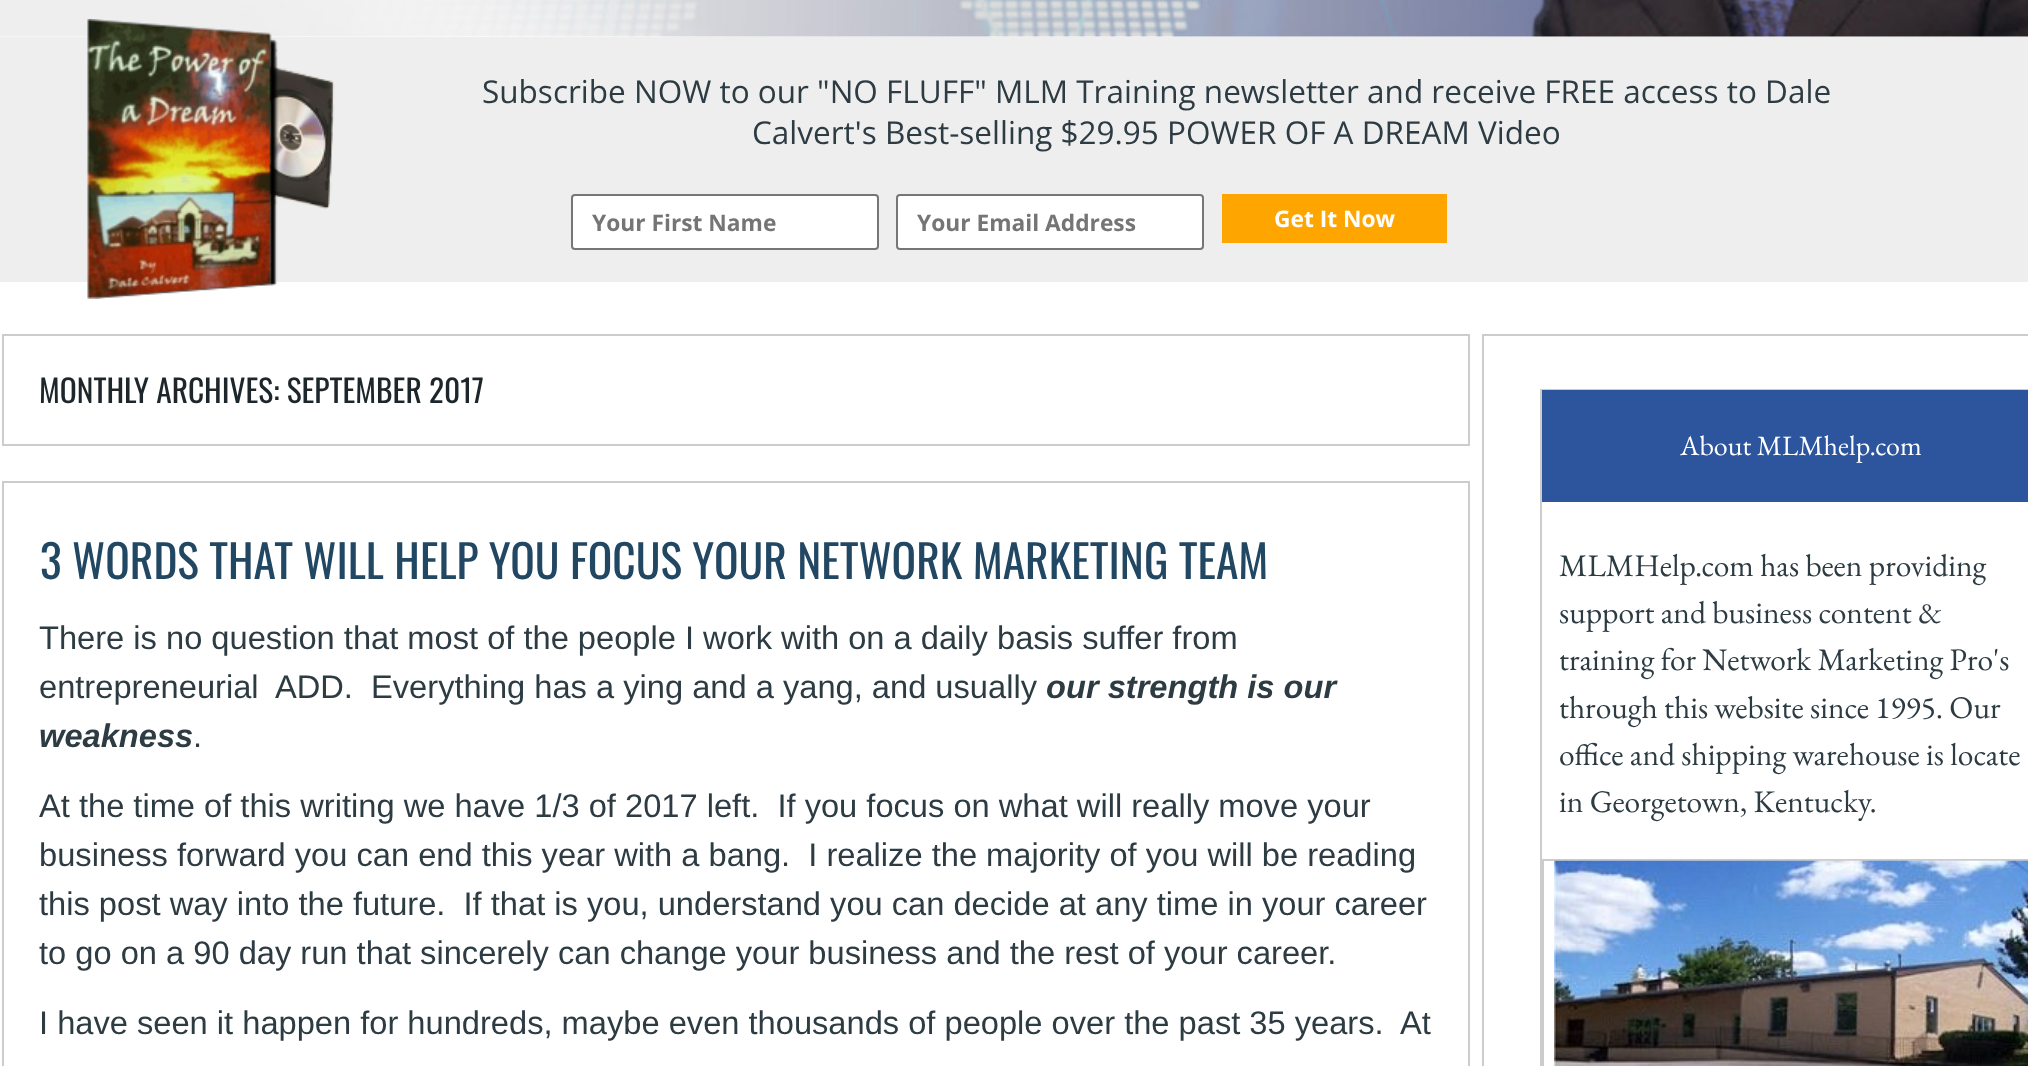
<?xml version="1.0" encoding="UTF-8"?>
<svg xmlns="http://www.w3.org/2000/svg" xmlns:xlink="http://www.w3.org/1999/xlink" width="2028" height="1066">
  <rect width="100%" height="100%" fill="#ffffff" />
  <image x="0" y="0" width="2028" height="37" xlink:href="image1.png" />
  <rect y="37" width="2028" height="245" fill="#eeeeee" />
  <image x="87" y="19" width="248" height="280" xlink:href="image2.png" />
  <rect x="572" y="195" width="306" height="54" rx="3" fill="#ffffff" stroke="#767676" stroke-width="2" />
  <rect x="897" y="195" width="306" height="54" rx="3" fill="#ffffff" stroke="#767676" stroke-width="2" />
  <rect x="1222" y="194" width="225" height="49" fill="#ffa500" />
  <rect x="3" y="335" width="1466" height="110" fill="none" stroke="#cccccc" stroke-width="2" />
  <rect x="3" y="482" width="1466" height="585" fill="none" stroke="#cccccc" stroke-width="2" />
  <rect x="1483" y="335" width="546" height="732" fill="none" stroke="#cccccc" stroke-width="2" />
  <rect x="1541" y="390" width="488" height="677" fill="none" stroke="#cccccc" stroke-width="2" />
  <rect x="1542" y="390" width="486" height="112" fill="#2d559d" />
  <rect x="1543" y="860" width="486" height="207" fill="none" stroke="#cccccc" stroke-width="2" />
  <image x="1554" y="860" width="474" height="206" xlink:href="image3.png" />
  <text x="482" y="103" style="font-family: Open Sans; font-size: 31.5px; fill: #2d3b43">Subscribe NOW to our "NO FLUFF" MLM Training newsletter and receive FREE access to Dale</text>
  <text x="752" y="144" style="font-family: Open Sans; font-size: 31.5px; fill: #2d3b43">Calvert's Best-selling $29.95 POWER OF A DREAM Video</text>
  <text x="592" y="231" style="font-family: Open Sans; font-size: 22.75px; font-weight: bold; fill: #757575">Your First Name</text>
  <text x="917" y="231" style="font-family: Open Sans; font-size: 22.75px; font-weight: bold; fill: #757575">Your Email Address</text>
  <text x="1274" y="227" style="font-family: Open Sans; font-size: 22.75px; font-weight: bold; fill: #ffffff">Get It Now</text>
  <text x="39" y="403" style="font-family: Oswald; font-size: 31.5px; fill: #1d262a">MONTHLY ARCHIVES: SEPTEMBER 2017</text>
  <text x="40" y="579" style="font-family: Oswald; font-size: 45.5px; fill: #214763">3 WORDS THAT WILL HELP YOU FOCUS YOUR NETWORK MARKETING TEAM</text>
  <text x="39" y="649" style="font-family: Liberation Sans; font-size: 32.65px; fill: #2d3b43">There is no question that most of the people I work with on a daily basis suffer from</text>
  <text x="39" y="698" style="font-family: Liberation Sans; font-size: 32.65px; fill: #2d3b43" xml:space="preserve">entrepreneurial  ADD.  Everything has a ying and a yang, and usually</text>
  <text x="1046" y="698" style="font-family: Liberation Sans; font-size: 32.65px; font-weight: bold; font-style: italic; fill: #2d3b43">our strength is our</text>
  <text x="39" y="747" style="font-family: Liberation Sans; font-size: 32.65px; font-weight: bold; font-style: italic; fill: #2d3b43">weakness</text>
  <text x="193" y="747" style="font-family: Liberation Sans; font-size: 32.65px; fill: #2d3b43">.</text>
  <text x="39" y="817" style="font-family: Liberation Sans; font-size: 32.65px; fill: #2d3b43" xml:space="preserve">At the time of this writing we have 1/3 of 2017 left.  If you focus on what will really move your</text>
  <text x="39" y="866" style="font-family: Liberation Sans; font-size: 32.65px; fill: #2d3b43" xml:space="preserve">business forward you can end this year with a bang.  I realize the majority of you will be reading</text>
  <text x="39" y="915" style="font-family: Liberation Sans; font-size: 32.65px; fill: #2d3b43" xml:space="preserve">this post way into the future.  If that is you, understand you can decide at any time in your career</text>
  <text x="39" y="964" style="font-family: Liberation Sans; font-size: 32.65px; fill: #2d3b43">to go on a 90 day run that sincerely can change your business and the rest of your career.</text>
  <text x="39" y="1034" style="font-family: Liberation Sans; font-size: 32.65px; fill: #2d3b43" xml:space="preserve">I have seen it happen for hundreds, maybe even thousands of people over the past 35 years.  At</text>
  <text x="1680" y="455" style="font-family: EB Garamond; font-size: 28px; fill: #ffffff">About MLMhelp.com</text>
  <text x="1559" y="576" style="font-family: EB Garamond; font-size: 31.5px; fill: #2d3b43">MLMHelp.com has been providing</text>
  <text x="1559" y="623" style="font-family: EB Garamond; font-size: 31.5px; fill: #2d3b43">support and business content &amp;</text>
  <text x="1559" y="670" style="font-family: EB Garamond; font-size: 31.5px; fill: #2d3b43">training for Network Marketing Pro's</text>
  <text x="1559" y="718" style="font-family: EB Garamond; font-size: 31.5px; fill: #2d3b43">through this website since 1995. Our</text>
  <text x="1559" y="765" style="font-family: EB Garamond; font-size: 31.5px; fill: #2d3b43">office and shipping warehouse is locate</text>
  <text x="1559" y="812" style="font-family: EB Garamond; font-size: 31.5px; fill: #2d3b43">in Georgetown, Kentucky.</text>
</svg>
